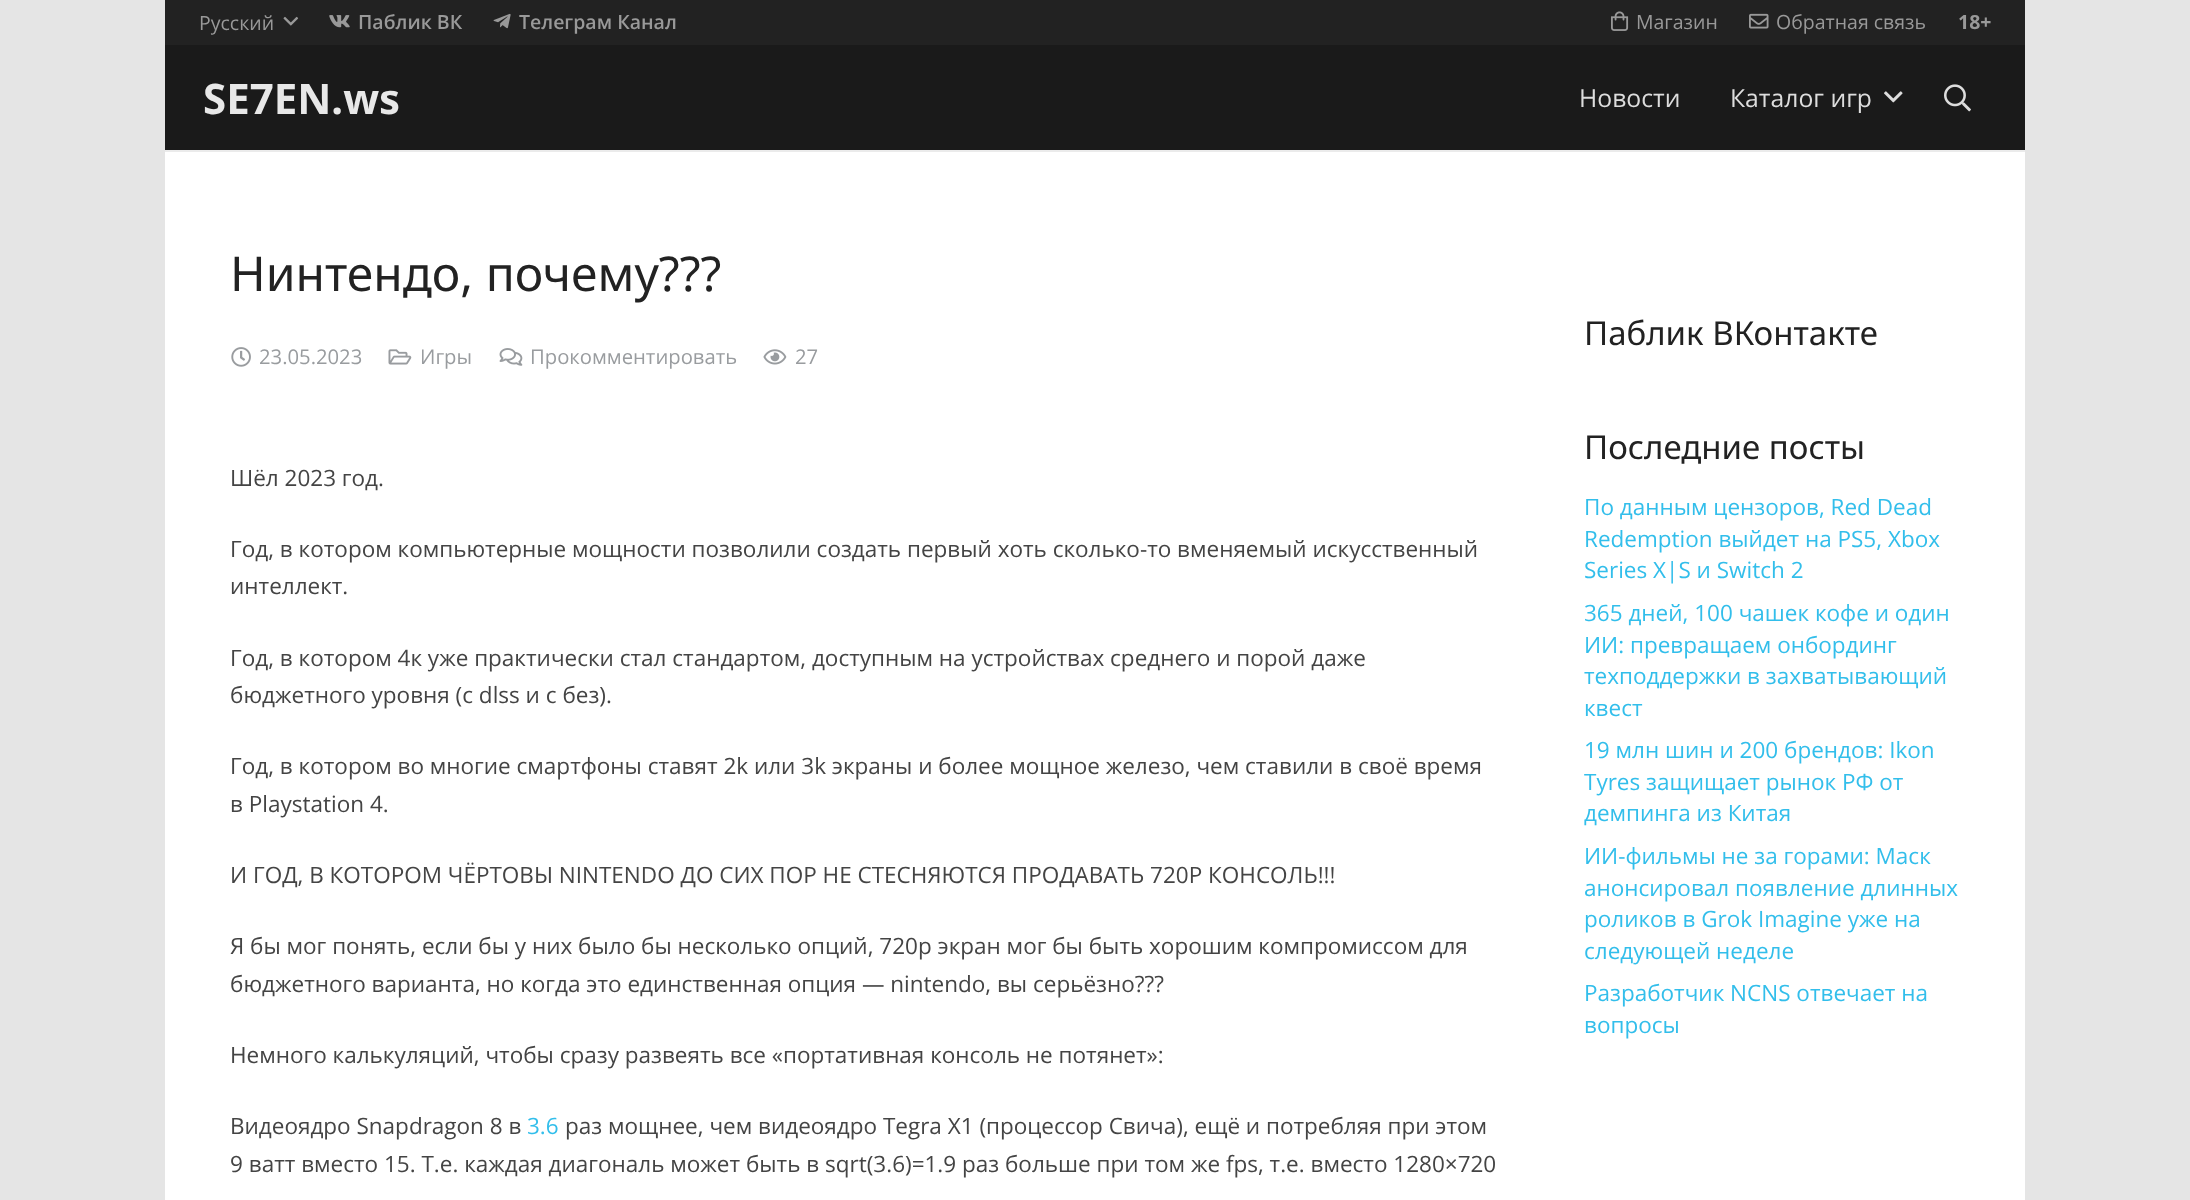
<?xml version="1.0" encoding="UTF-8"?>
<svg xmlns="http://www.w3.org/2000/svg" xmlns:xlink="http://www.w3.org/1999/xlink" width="2190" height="1200">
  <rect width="100%" height="100%" fill="#e5e5e5" />
  <rect x="165" y="152" width="1860" height="1048" fill="#ffffff" />
  <rect x="165" width="1860" height="45" fill="#222222" />
  <image x="283" y="16" width="16" height="10" xlink:href="image1.png" />
  <image x="329" y="15" width="21" height="13" xlink:href="image2.png" />
  <image x="493" y="13" width="18" height="16" xlink:href="image3.png" />
  <image x="1611" y="11" width="18" height="20" xlink:href="image4.png" />
  <image x="1749" y="13" width="20" height="16" xlink:href="image5.png" />
  <rect x="165" y="150" width="1860" height="2" fill="#ebebeb" />
  <rect x="165" y="45" width="1860" height="105" fill="#1a1a1a" />
  <image x="1884" y="91" width="19" height="12" xlink:href="image6.png" />
  <image x="1944" y="84" width="27" height="28" xlink:href="image7.png" />
  <image x="231" y="347" width="20" height="20" xlink:href="image8.png" />
  <image x="388" y="349" width="24" height="16" xlink:href="image9.png" />
  <image x="499" y="348" width="24" height="18" xlink:href="image10.png" />
  <image x="763" y="349" width="24" height="16" xlink:href="image11.png" />
  <text x="199" y="30" style="font-family: Open Sans; font-size: 19.5px; fill: #999999">Русский</text>
  <text x="358" y="29" style="font-family: Open Sans; font-size: 19.5px; font-weight: 600; fill: #999999">Паблик ВК</text>
  <text x="519" y="29" style="font-family: Open Sans; font-size: 19.5px; font-weight: 600; fill: #999999">Телеграм Канал</text>
  <text x="1636" y="29" style="font-family: Open Sans; font-size: 19.5px; fill: #999999">Магазин</text>
  <text x="1776" y="29" style="font-family: Open Sans; font-size: 19.5px; fill: #999999">Обратная связь</text>
  <text x="1958" y="29" style="font-family: Noto Sans; font-size: 19.5px; font-weight: bold; fill: #999999">18+</text>
  <text x="203" y="114" style="font-family: Noto Sans; font-size: 42px; font-weight: bold; fill: #e8e8e8">SE7EN.ws</text>
  <text x="1579" y="107" style="font-family: Open Sans; font-size: 24.75px; fill: #dddddd">Новости</text>
  <text x="1730" y="107" style="font-family: Open Sans; font-size: 24.75px; fill: #dddddd">Каталог игр</text>
  <text x="230" y="291" style="font-family: Noto Sans; font-size: 48px; fill: #222222">Нинтендо, почему???</text>
  <text x="259" y="364" style="font-family: Open Sans; font-size: 20.25px; fill: #999c9f">23.05.2023</text>
  <text x="420" y="364" style="font-family: Open Sans; font-size: 20.25px; fill: #999c9f">Игры</text>
  <text x="530" y="364" style="font-family: Open Sans; font-size: 20.25px; fill: #999c9f">Прокомментировать</text>
  <text x="795" y="364" style="font-family: Open Sans; font-size: 20.25px; fill: #999c9f">27</text>
  <text x="230" y="486" style="font-family: Open Sans; font-size: 22.5px; fill: #444444">Шёл 2023 год.</text>
  <text x="230" y="557" style="font-family: Open Sans; font-size: 22.5px; fill: #444444">Год, в котором компьютерные мощности позволили создать первый хоть сколько-то вменяемый искусственный</text>
  <text x="230" y="594" style="font-family: Open Sans; font-size: 22.5px; fill: #444444">интеллект.</text>
  <text x="230" y="666" style="font-family: Open Sans; font-size: 22.5px; fill: #444444">Год, в котором 4к уже практически стал стандартом, доступным на устройствах среднего и порой даже</text>
  <text x="230" y="703" style="font-family: Open Sans; font-size: 22.5px; fill: #444444">бюджетного уровня (с dlss и с без).</text>
  <text x="230" y="774" style="font-family: Open Sans; font-size: 22.5px; fill: #444444">Год, в котором во многие смартфоны ставят 2k или 3k экраны и более мощное железо, чем ставили в своё время</text>
  <text x="230" y="812" style="font-family: Open Sans; font-size: 22.5px; fill: #444444">в Playstation 4.</text>
  <text x="230" y="883" style="font-family: Open Sans; font-size: 22.5px; fill: #444444">И ГОД, В КОТОРОМ ЧЁРТОВЫ NINTENDO ДО СИХ ПОР НЕ СТЕСНЯЮТСЯ ПРОДАВАТЬ 720P КОНСОЛЬ!!!</text>
  <text x="230" y="954" style="font-family: Open Sans; font-size: 22.5px; fill: #444444">Я бы мог понять, если бы у них было бы несколько опций, 720p экран мог бы быть хорошим компромиссом для</text>
  <text x="230" y="992" style="font-family: Open Sans; font-size: 22.5px; fill: #444444">бюджетного варианта, но когда это единственная опция — nintendo, вы серьёзно???</text>
  <text x="230" y="1063" style="font-family: Open Sans; font-size: 22.5px; fill: #444444">Немного калькуляций, чтобы сразу развеять все «портативная консоль не потянет»:</text>
  <text x="230" y="1134" style="font-family: Open Sans; font-size: 22.5px; fill: #444444">Видеоядро Snapdragon 8 в</text>
  <text x="527" y="1134" style="font-family: Open Sans; font-size: 22.5px; fill: #32beeb">3.6</text>
  <text x="565" y="1134" style="font-family: Open Sans; font-size: 22.5px; fill: #444444">раз мощнее, чем видеоядро Tegra X1 (процессор Свича), ещё и потребляя при этом</text>
  <text x="230" y="1172" style="font-family: Open Sans; font-size: 22.5px; fill: #444444">9 ватт вместо 15. Т.е. каждая диагональ может быть в sqrt(3.6)=1.9 раз больше при том же fps, т.е. вместо 1280×720</text>
  <text x="1584" y="345" style="font-family: Noto Sans; font-size: 33px; fill: #222222">Паблик ВКонтакте</text>
  <text x="1584" y="459" style="font-family: Noto Sans; font-size: 33px; fill: #222222">Последние посты</text>
  <text x="1584" y="515" style="font-family: Open Sans; font-size: 22.5px; fill: #32beeb">По данным цензоров, Red Dead</text>
  <text x="1584" y="547" style="font-family: Open Sans; font-size: 22.5px; fill: #32beeb">Redemption выйдет на PS5, Xbox</text>
  <text x="1584" y="578" style="font-family: Open Sans; font-size: 22.5px; fill: #32beeb">Series X|S и Switch 2</text>
  <text x="1584" y="621" style="font-family: Open Sans; font-size: 22.5px; fill: #32beeb">365 дней, 100 чашек кофе и один</text>
  <text x="1584" y="653" style="font-family: Open Sans; font-size: 22.5px; fill: #32beeb">ИИ: превращаем онбординг</text>
  <text x="1584" y="684" style="font-family: Open Sans; font-size: 22.5px; fill: #32beeb">техподдержки в захватывающий</text>
  <text x="1584" y="716" style="font-family: Open Sans; font-size: 22.5px; fill: #32beeb">квест</text>
  <text x="1584" y="758" style="font-family: Open Sans; font-size: 22.5px; fill: #32beeb">19 млн шин и 200 брендов: Ikon</text>
  <text x="1584" y="790" style="font-family: Open Sans; font-size: 22.5px; fill: #32beeb">Tyres защищает рынок РФ от</text>
  <text x="1584" y="821" style="font-family: Open Sans; font-size: 22.5px; fill: #32beeb">демпинга из Китая</text>
  <text x="1584" y="864" style="font-family: Open Sans; font-size: 22.5px; fill: #32beeb">ИИ-фильмы не за горами: Маск</text>
  <text x="1584" y="896" style="font-family: Open Sans; font-size: 22.5px; fill: #32beeb">анонсировал появление длинных</text>
  <text x="1584" y="927" style="font-family: Open Sans; font-size: 22.5px; fill: #32beeb">роликов в Grok Imagine уже на</text>
  <text x="1584" y="959" style="font-family: Open Sans; font-size: 22.5px; fill: #32beeb">следующей неделе</text>
  <text x="1584" y="1001" style="font-family: Open Sans; font-size: 22.5px; fill: #32beeb">Разработчик NCNS отвечает на</text>
  <text x="1584" y="1033" style="font-family: Open Sans; font-size: 22.5px; fill: #32beeb">вопросы</text>
</svg>
